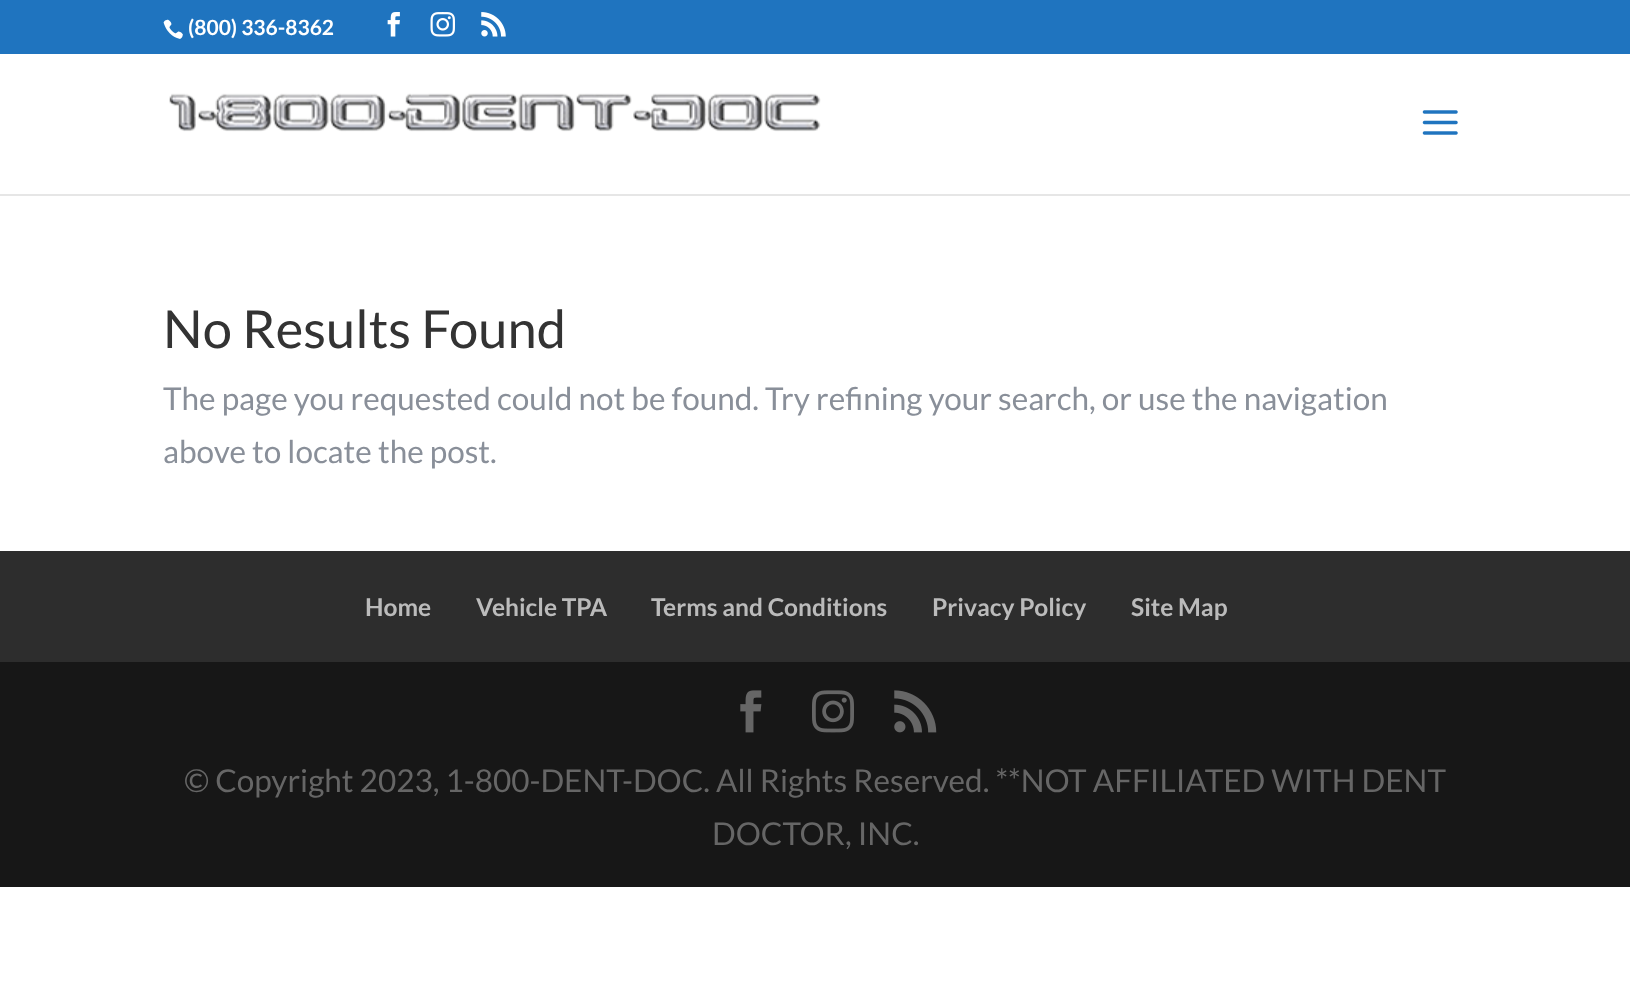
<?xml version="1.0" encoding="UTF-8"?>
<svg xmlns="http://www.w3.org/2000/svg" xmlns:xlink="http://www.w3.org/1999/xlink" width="1630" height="1004">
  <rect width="100%" height="100%" fill="#ffffff" />
  <rect width="1630" height="54" fill="#1f74bf" />
  <image x="163" y="19" width="20" height="20" xlink:href="image1.png" />
  <image x="387" y="12" width="13" height="25" xlink:href="image2.png" />
  <image x="430" y="12" width="25" height="25" xlink:href="image3.png" />
  <image x="481" y="12" width="25" height="25" xlink:href="image4.png" />
  <rect y="194" width="1630" height="2" fill="#e6e6e6" />
  <image x="169" y="93" width="652" height="39" xlink:href="image5.png" />
  <image x="1422" y="110" width="36" height="25" xlink:href="image6.png" />
  <rect y="551" width="1630" height="111" fill="#2d2d2d" />
  <rect y="662" width="1630" height="225" fill="#171717" />
  <image x="740" y="690" width="22" height="43" xlink:href="image7.png" />
  <image x="812" y="690" width="42" height="43" xlink:href="image8.png" />
  <image x="894" y="690" width="43" height="43" xlink:href="image9.png" />
  <text x="188" y="35" style="font-family: Lato; font-size: 21px; font-weight: bold; fill: #ffffff">(800) 336-8362</text>
  <text x="163" y="348" style="font-family: Lato; font-size: 52.5px; fill: #333333">No Results Found</text>
  <text x="163" y="410" style="font-family: Lato; font-size: 31.5px; fill: #898f99">The page you requested could not be found. Try refining your search, or use the navigation</text>
  <text x="163" y="463" style="font-family: Lato; font-size: 31.5px; fill: #898f99">above to locate the post.</text>
  <text x="365" y="616" style="font-family: Lato; font-size: 24.5px; font-weight: bold; fill: #bbbbbb">Home</text>
  <text x="476" y="616" style="font-family: Lato; font-size: 24.5px; font-weight: bold; fill: #bbbbbb">Vehicle TPA</text>
  <text x="651" y="616" style="font-family: Lato; font-size: 24.5px; font-weight: bold; fill: #bbbbbb">Terms and Conditions</text>
  <text x="932" y="616" style="font-family: Lato; font-size: 24.5px; font-weight: bold; fill: #bbbbbb">Privacy Policy</text>
  <text x="1131" y="616" style="font-family: Lato; font-size: 24.5px; font-weight: bold; fill: #bbbbbb">Site Map</text>
  <text x="184" y="792" style="font-family: Lato; font-size: 31.5px; fill: #666666">© Copyright 2023, 1-800-DENT-DOC. All Rights Reserved. **NOT AFFILIATED WITH DENT</text>
  <text x="712" y="845" style="font-family: Lato; font-size: 31.5px; fill: #666666">DOCTOR, INC.</text>
</svg>
